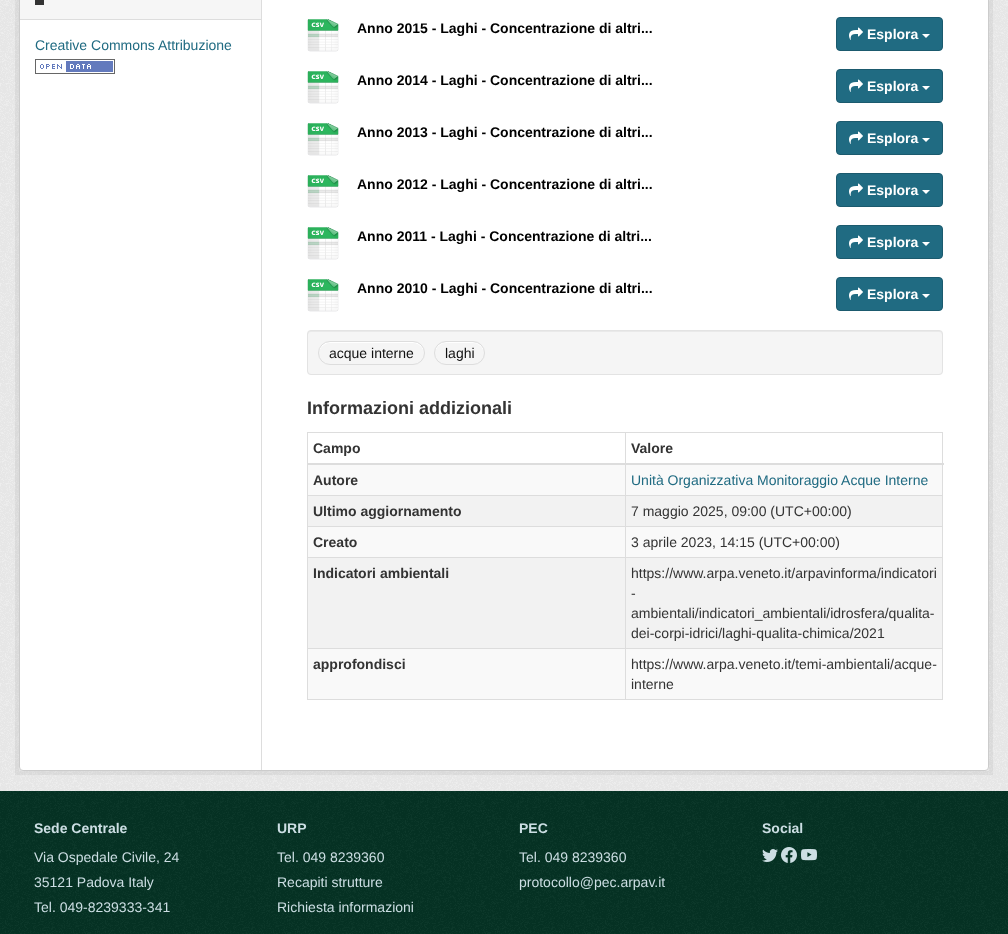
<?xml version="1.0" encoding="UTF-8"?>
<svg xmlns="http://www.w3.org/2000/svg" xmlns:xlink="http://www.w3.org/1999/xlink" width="1008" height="934">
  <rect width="100%" height="100%" fill="#063325" />
  <rect width="1008" height="791" fill="#eeeeee" />
  <image x="0" y="0" width="1008" height="791" xlink:href="image1.png" />
  <rect x="17" y="-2" width="974" height="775" fill="none" stroke="#000000" stroke-opacity="0.05" stroke-width="4" />
  <rect x="19.5" y="-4.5" width="969" height="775" rx="3.5" fill="#ffffff" stroke="#cccccc" />
  <rect x="20" width="241" height="19" fill="#f6f6f6" />
  <rect x="20" y="19" width="241" height="1" fill="#dddddd" />
  <rect x="35" width="9" height="5" fill="#333333" />
  <image x="35" y="59" width="80" height="15" xlink:href="image2.png" />
  <rect x="261" width="1" height="770" fill="#dddddd" />
  <image x="307" y="19" width="32" height="33" xlink:href="image3.png" />
  <rect x="836.5" y="17.5" width="106" height="33" rx="3.5" fill="#206b82" stroke="#1b5a6e" />
  <image x="849" y="27" width="14" height="13" xlink:href="image4.png" />
  <path d="M 922 34 h 8 l -4 4 z" fill="#ffffff" />
  <image x="307" y="71" width="32" height="33" xlink:href="image3.png" />
  <rect x="836.5" y="69.5" width="106" height="33" rx="3.5" fill="#206b82" stroke="#1b5a6e" />
  <image x="849" y="79" width="14" height="13" xlink:href="image4.png" />
  <path d="M 922 86 h 8 l -4 4 z" fill="#ffffff" />
  <image x="307" y="123" width="32" height="33" xlink:href="image3.png" />
  <rect x="836.5" y="121.5" width="106" height="33" rx="3.5" fill="#206b82" stroke="#1b5a6e" />
  <image x="849" y="131" width="14" height="13" xlink:href="image4.png" />
  <path d="M 922 138 h 8 l -4 4 z" fill="#ffffff" />
  <image x="307" y="175" width="32" height="33" xlink:href="image3.png" />
  <rect x="836.5" y="173.5" width="106" height="33" rx="3.5" fill="#206b82" stroke="#1b5a6e" />
  <image x="849" y="183" width="14" height="13" xlink:href="image4.png" />
  <path d="M 922 190 h 8 l -4 4 z" fill="#ffffff" />
  <image x="307" y="227" width="32" height="33" xlink:href="image3.png" />
  <rect x="836.5" y="225.5" width="106" height="33" rx="3.5" fill="#206b82" stroke="#1b5a6e" />
  <image x="849" y="235" width="14" height="13" xlink:href="image4.png" />
  <path d="M 922 242 h 8 l -4 4 z" fill="#ffffff" />
  <image x="307" y="279" width="32" height="33" xlink:href="image3.png" />
  <rect x="836.5" y="277.5" width="106" height="33" rx="3.5" fill="#206b82" stroke="#1b5a6e" />
  <image x="849" y="287" width="14" height="13" xlink:href="image4.png" />
  <path d="M 922 294 h 8 l -4 4 z" fill="#ffffff" />
  <rect x="307" y="330" width="636" height="45" rx="4" fill="#f5f5f5" />
  <path d="M 311 332 h 628 c 2 0 3 1 3 3 v -1 c 0 -2 -1 -3 -3 -3 h -628 c -2 0 -3 1 -3 3 v 1 c 0 -2 1 -3 3 -3 z" fill="#e9e9e9" />
  <rect x="307.5" y="330.5" width="635" height="44" rx="3.5" fill="none" stroke="#e3e3e3" />
  <path d="M 330 343 h 83 c 6 0 11 5 11 11 c 1 -15 -16 -12 -25 -12 h -55 c -9 0 -26 -3 -25 12 c 0 -6 5 -11 11 -11 z" fill="#ffffff" />
  <rect x="318.5" y="341.5" width="106" height="23" rx="11.5" fill="none" stroke="#dddddd" />
  <path d="M 446 343 h 27 c 6 0 11 5 11 11 c 1 -14 -16 -12 -24 -12 c -9 0 -26 -2 -25 12 c 0 -6 5 -11 11 -11 z" fill="#ffffff" />
  <rect x="434.5" y="341.5" width="50" height="23" rx="11.5" fill="none" stroke="#dddddd" />
  <rect x="307" y="432" width="636" height="1" fill="#dddddd" />
  <rect x="942" y="432" width="1" height="268" fill="#dddddd" />
  <rect x="307" y="699" width="636" height="1" fill="#dddddd" />
  <rect x="307" y="432" width="1" height="268" fill="#dddddd" />
  <rect x="308" y="465" width="634" height="30" fill="#f9f9f9" />
  <rect x="625" y="495" width="318" height="1" fill="#dddddd" />
  <rect x="625" y="526" width="318" height="1" fill="#dddddd" />
  <rect x="308" y="527" width="634" height="30" fill="#f9f9f9" />
  <rect x="625" y="557" width="318" height="1" fill="#dddddd" />
  <rect x="625" y="648" width="318" height="1" fill="#dddddd" />
  <rect x="308" y="649" width="634" height="50" fill="#f9f9f9" />
  <rect x="625" y="648" width="1" height="52" fill="#dddddd" />
  <rect x="307" y="648" width="319" height="1" fill="#dddddd" />
  <rect x="625" y="557" width="1" height="92" fill="#dddddd" />
  <rect x="307" y="557" width="319" height="1" fill="#dddddd" />
  <rect x="625" y="526" width="1" height="32" fill="#dddddd" />
  <rect x="307" y="526" width="319" height="1" fill="#dddddd" />
  <rect x="625" y="495" width="1" height="32" fill="#dddddd" />
  <rect x="307" y="495" width="319" height="1" fill="#dddddd" />
  <rect x="625" y="432" width="1" height="64" fill="#dddddd" />
  <rect x="307" y="463" width="637" height="2" fill="#dddddd" />
  <rect x="308" y="496" width="317" height="30" fill="#f2f2f2" />
  <rect x="626" y="496" width="316" height="30" fill="#f2f2f2" />
  <rect x="308" y="558" width="317" height="90" fill="#f2f2f2" />
  <rect x="626" y="558" width="316" height="90" fill="#f2f2f2" />
  <image x="0" y="791" width="1008" height="143" xlink:href="image5.png" />
  <image x="762" y="849" width="16" height="13" xlink:href="image6.png" />
  <image x="781" y="847" width="16" height="16" xlink:href="image7.png" />
  <image x="801" y="849" width="16" height="12" xlink:href="image8.png" />
  <text x="35" y="50" style="font-family: Liberation Sans; font-size: 14px; fill: #206b82">Creative Commons Attribuzione</text>
  <text x="357" y="33" style="font-family: Liberation Sans; font-size: 14px; font-weight: bold; fill: #000000">Anno 2015 - Laghi - Concentrazione di altri...</text>
  <text x="867" y="39" style="font-family: Liberation Sans; font-size: 14px; font-weight: bold; fill: #ffffff">Esplora</text>
  <text x="357" y="85" style="font-family: Liberation Sans; font-size: 14px; font-weight: bold; fill: #000000">Anno 2014 - Laghi - Concentrazione di altri...</text>
  <text x="867" y="91" style="font-family: Liberation Sans; font-size: 14px; font-weight: bold; fill: #ffffff">Esplora</text>
  <text x="357" y="137" style="font-family: Liberation Sans; font-size: 14px; font-weight: bold; fill: #000000">Anno 2013 - Laghi - Concentrazione di altri...</text>
  <text x="867" y="143" style="font-family: Liberation Sans; font-size: 14px; font-weight: bold; fill: #ffffff">Esplora</text>
  <text x="357" y="189" style="font-family: Liberation Sans; font-size: 14px; font-weight: bold; fill: #000000">Anno 2012 - Laghi - Concentrazione di altri...</text>
  <text x="867" y="195" style="font-family: Liberation Sans; font-size: 14px; font-weight: bold; fill: #ffffff">Esplora</text>
  <text x="357" y="241" style="font-family: Liberation Sans; font-size: 14px; font-weight: bold; fill: #000000">Anno 2011 - Laghi - Concentrazione di altri...</text>
  <text x="867" y="247" style="font-family: Liberation Sans; font-size: 14px; font-weight: bold; fill: #ffffff">Esplora</text>
  <text x="357" y="293" style="font-family: Liberation Sans; font-size: 14px; font-weight: bold; fill: #000000">Anno 2010 - Laghi - Concentrazione di altri...</text>
  <text x="867" y="299" style="font-family: Liberation Sans; font-size: 14px; font-weight: bold; fill: #ffffff">Esplora</text>
  <text x="329" y="358" style="font-family: Liberation Sans; font-size: 14px; fill: #111111">acque interne</text>
  <text x="445" y="358" style="font-family: Liberation Sans; font-size: 14px; fill: #111111">laghi</text>
  <text x="307" y="414" style="font-family: Liberation Sans; font-size: 18px; font-weight: bold; fill: #333333">Informazioni addizionali</text>
  <text x="313" y="453" style="font-family: Liberation Sans; font-size: 14px; font-weight: bold; fill: #333333">Campo</text>
  <text x="631" y="453" style="font-family: Liberation Sans; font-size: 14px; font-weight: bold; fill: #333333">Valore</text>
  <text x="313" y="485" style="font-family: Liberation Sans; font-size: 14px; font-weight: bold; fill: #333333">Autore</text>
  <text x="631" y="485" style="font-family: Liberation Sans; font-size: 14px; fill: #206b82">Unità Organizzativa Monitoraggio Acque Interne</text>
  <text x="313" y="516" style="font-family: Liberation Sans; font-size: 14px; font-weight: bold; fill: #333333">Ultimo aggiornamento</text>
  <text x="631" y="516" style="font-family: Liberation Sans; font-size: 14px; fill: #333333">7 maggio 2025, 09:00 (UTC+00:00)</text>
  <text x="313" y="547" style="font-family: Liberation Sans; font-size: 14px; font-weight: bold; fill: #333333">Creato</text>
  <text x="631" y="547" style="font-family: Liberation Sans; font-size: 14px; fill: #333333">3 aprile 2023, 14:15 (UTC+00:00)</text>
  <text x="313" y="578" style="font-family: Liberation Sans; font-size: 14px; font-weight: bold; fill: #333333">Indicatori ambientali</text>
  <text x="631" y="578" style="font-family: Liberation Sans; font-size: 14px; fill: #333333">https://www.arpa.veneto.it/arpavinforma/indicatori</text>
  <text x="631" y="598" style="font-family: Liberation Sans; font-size: 14px; fill: #333333">-</text>
  <text x="631" y="618" style="font-family: Liberation Sans; font-size: 14px; fill: #333333">ambientali/indicatori_ambientali/idrosfera/qualita-</text>
  <text x="631" y="638" style="font-family: Liberation Sans; font-size: 14px; fill: #333333">dei-corpi-idrici/laghi-qualita-chimica/2021</text>
  <text x="313" y="669" style="font-family: Liberation Sans; font-size: 14px; font-weight: bold; fill: #333333">approfondisci</text>
  <text x="631" y="669" style="font-family: Liberation Sans; font-size: 14px; fill: #333333">https://www.arpa.veneto.it/temi-ambientali/acque-</text>
  <text x="631" y="689" style="font-family: Liberation Sans; font-size: 14px; fill: #333333">interne</text>
  <text x="34" y="833" style="font-family: Liberation Sans; font-size: 14px; font-weight: bold; fill: #ccdee3">Sede Centrale</text>
  <text x="34" y="862" style="font-family: Liberation Sans; font-size: 14px; fill: #ccdee3">Via Ospedale Civile, 24</text>
  <text x="34" y="887" style="font-family: Liberation Sans; font-size: 14px; fill: #ccdee3">35121 Padova Italy</text>
  <text x="34" y="912" style="font-family: Liberation Sans; font-size: 14px; fill: #ccdee3">Tel. 049-8239333-341</text>
  <text x="277" y="833" style="font-family: Liberation Sans; font-size: 14px; font-weight: bold; fill: #ccdee3">URP</text>
  <text x="277" y="862" style="font-family: Liberation Sans; font-size: 14px; fill: #ccdee3">Tel. 049 8239360</text>
  <text x="277" y="887" style="font-family: Liberation Sans; font-size: 14px; fill: #ccdee3">Recapiti strutture</text>
  <text x="277" y="912" style="font-family: Liberation Sans; font-size: 14px; fill: #ccdee3">Richiesta informazioni</text>
  <text x="519" y="833" style="font-family: Liberation Sans; font-size: 14px; font-weight: bold; fill: #ccdee3">PEC</text>
  <text x="519" y="862" style="font-family: Liberation Sans; font-size: 14px; fill: #ccdee3">Tel. 049 8239360</text>
  <text x="519" y="887" style="font-family: Liberation Sans; font-size: 14px; fill: #ccdee3">protocollo@pec.arpav.it</text>
  <text x="762" y="833" style="font-family: Liberation Sans; font-size: 14px; font-weight: bold; fill: #ccdee3">Social</text>
</svg>
